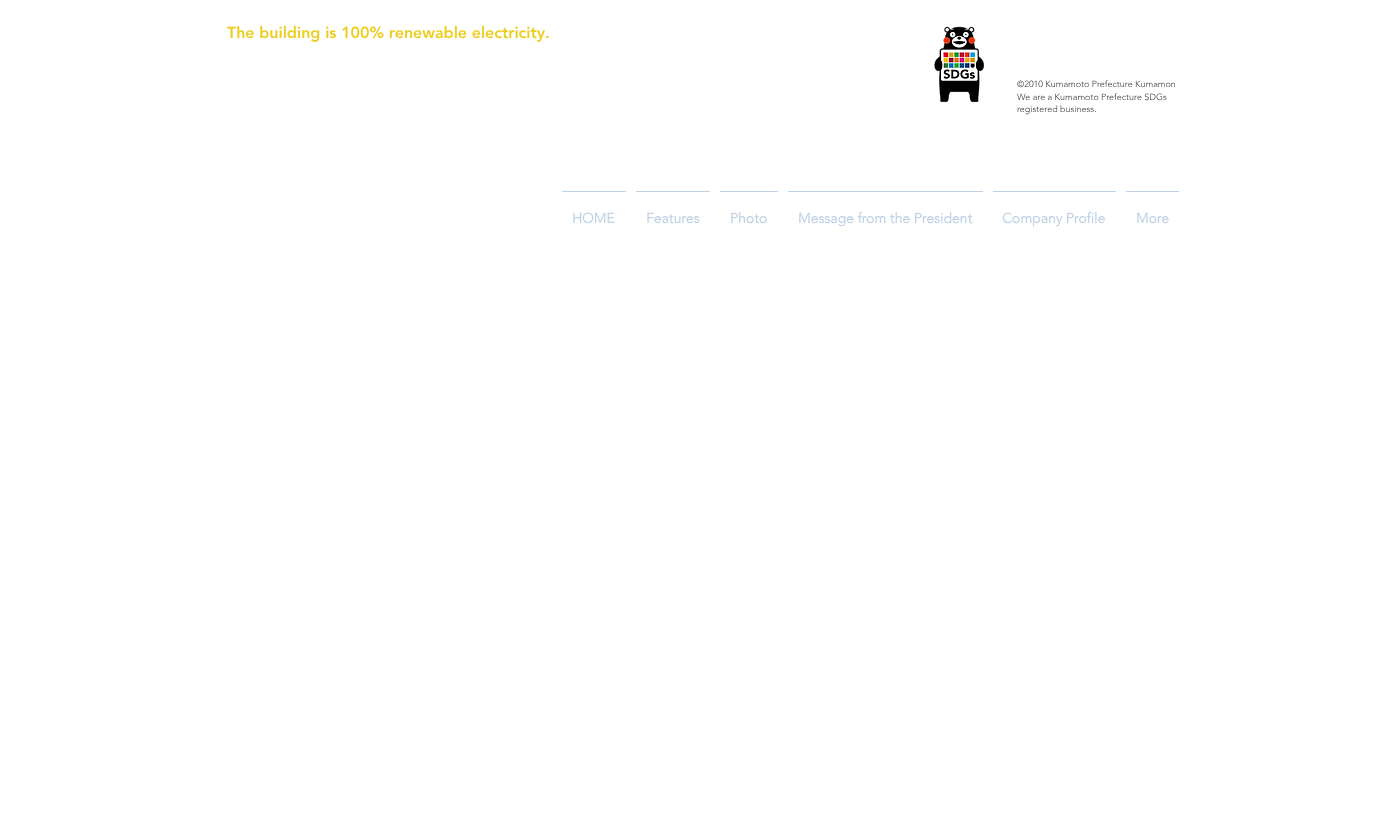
<?xml version="1.0" encoding="UTF-8"?>
<svg xmlns="http://www.w3.org/2000/svg" xmlns:xlink="http://www.w3.org/1999/xlink" width="1389" height="825">
  <rect width="100%" height="100%" fill="#ffffff" />
  <image x="934" y="26" width="50" height="77" xlink:href="image1.png" />
  <rect x="562" y="191" width="64" height="1" fill="#c0d2e5" />
  <rect x="636" y="191" width="74" height="1" fill="#c0d2e5" />
  <rect x="720" y="191" width="58" height="1" fill="#c0d2e5" />
  <rect x="788" y="191" width="195" height="1" fill="#c0d2e5" />
  <rect x="993" y="191" width="123" height="1" fill="#c0d2e5" />
  <rect x="1126" y="191" width="53" height="1" fill="#c0d2e5" />
  <text x="227" y="38" style="font-family: 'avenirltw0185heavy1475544'; font-size: 16px; font-weight: 900; fill: #edcd1f">The building is 100% renewable electricity.</text>
  <text x="1017" y="87" style="font-family: 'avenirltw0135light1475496'; font-size: 9px; font-weight: 300; fill: #3b3a3a">©2010 Kumamoto Prefecture Kumamon</text>
  <text x="1017" y="100" style="font-family: 'avenirltw0135light1475496'; font-size: 9px; font-weight: 300; fill: #3b3a3a">We are a Kumamoto Prefecture SDGs</text>
  <text x="1017" y="112" style="font-family: 'avenirltw0135light1475496'; font-size: 9px; font-weight: 300; fill: #3b3a3a">registered business.</text>
  <text x="572" y="223" style="font-family: 'avenirltw0135light1475496'; font-size: 14px; font-weight: bold; fill: #c0d2e5">HOME</text>
  <text x="646" y="223" style="font-family: 'avenirltw0135light1475496'; font-size: 14px; font-weight: bold; fill: #c0d2e5">Features</text>
  <text x="730" y="223" style="font-family: 'avenirltw0135light1475496'; font-size: 14px; font-weight: bold; fill: #c0d2e5">Photo</text>
  <text x="798" y="223" style="font-family: 'avenirltw0135light1475496'; font-size: 14px; font-weight: bold; fill: #c0d2e5">Message from the President</text>
  <text x="1002" y="223" style="font-family: 'avenirltw0135light1475496'; font-size: 14px; font-weight: bold; fill: #c0d2e5">Company Profile</text>
  <text x="1136" y="223" style="font-family: 'avenirltw0135light1475496'; font-size: 14px; font-weight: bold; fill: #c0d2e5">More</text>
</svg>
